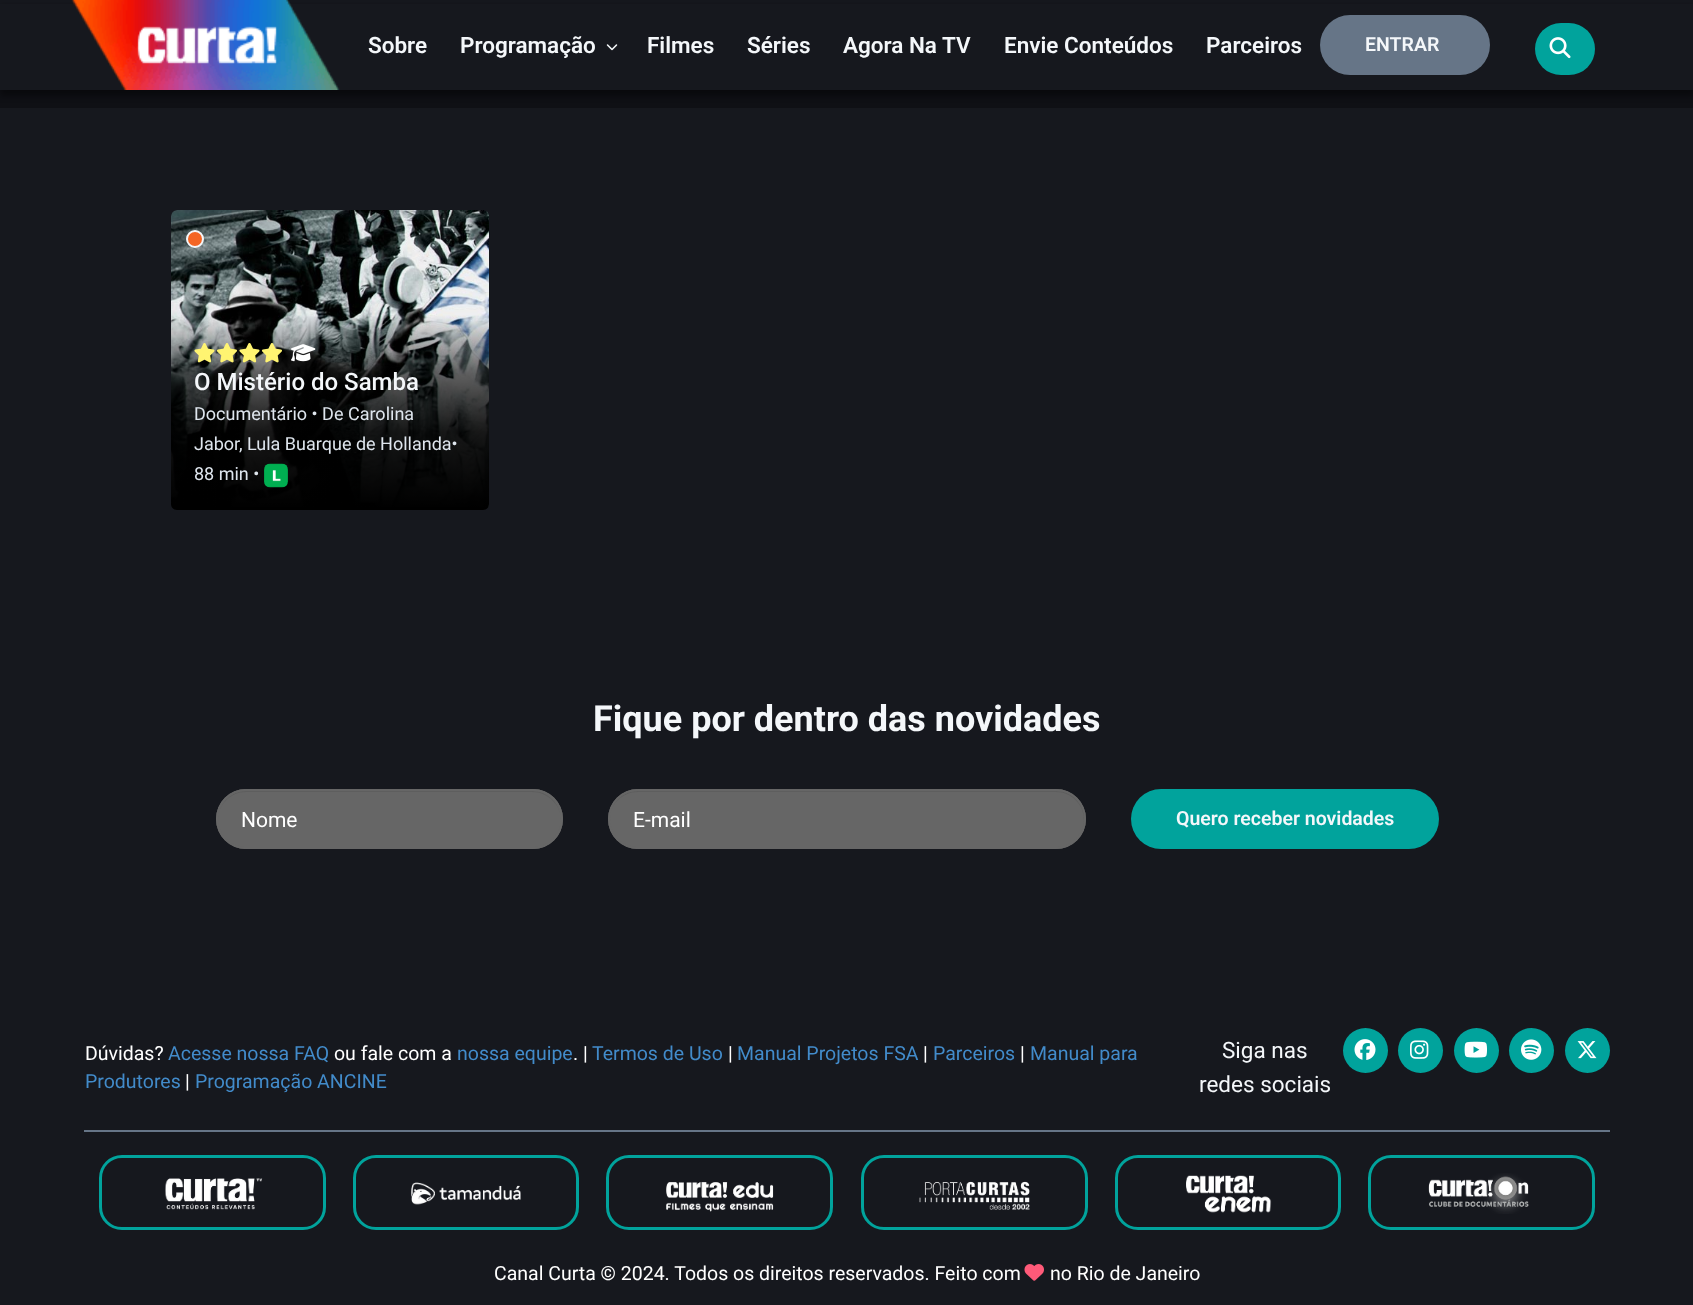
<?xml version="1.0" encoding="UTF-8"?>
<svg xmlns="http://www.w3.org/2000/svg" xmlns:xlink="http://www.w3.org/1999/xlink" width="1693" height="1305">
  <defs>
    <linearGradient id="g1" gradientUnits="userSpaceOnUse" x1="330" y1="315" x2="330" y2="510"><stop offset="0" stop-color="#000000" stop-opacity="0" /><stop offset="0.3" stop-color="#000000" stop-opacity="0.6" /><stop offset="0.6" stop-color="#000000" stop-opacity="0.9" /><stop offset="1" stop-color="#000000" /></linearGradient>
  </defs>
  <rect width="100%" height="100%" fill="#16181e" />
  <rect y="90" width="1693" height="18" fill="#0f1015" />
  <rect y="6" width="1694" height="90" fill="#000000" fill-opacity="0.4" filter="blur(3px)" />
  <rect y="4" width="1693" height="86" fill="#16181e" />
  <image x="71" y="0" width="269" height="90" xlink:href="image1.png" />
  <image x="606" y="44" width="12" height="7" xlink:href="image2.png" />
  <rect x="1320" y="15" width="170" height="60" rx="30" fill="#667587" />
  <rect x="1535" y="23" width="60" height="52" rx="26" fill="#01a39c" />
  <image x="1549" y="37" width="22" height="22" xlink:href="image3.png" />
  <image x="171" y="210" width="318" height="297" xlink:href="image4.png" />
  <circle cx="195" cy="239" r="8" fill="#f46524" stroke="#f4f7fa" stroke-width="2" />
  <path d="M 171 315 h 318 v 189 c 0 3.5 -2.5 6 -6 6 h -306 c -3.5 0 -6 -2.5 -6 -6 z" fill="url(#g1)" />
  <image x="194" y="343" width="21" height="20" xlink:href="image5.png" />
  <image x="216" y="343" width="21" height="20" xlink:href="image6.png" />
  <image x="239" y="343" width="21" height="20" xlink:href="image7.png" />
  <image x="261" y="343" width="21" height="20" xlink:href="image8.png" />
  <image x="291" y="344" width="25" height="18" xlink:href="image9.png" />
  <image x="264" y="463" width="24" height="25" xlink:href="image10.png" />
  <rect x="216" y="789" width="347" height="60" rx="30" fill="#666666" />
  <path d="M 246 792 h 286 c 16 0 29 13 29 28 c 0 -16 -13 -29 -29 -29 h -286 c -15 0 -28 13 -28 29 c 0 -15 12 -28 28 -28 z" fill="#5e5e5e" />
  <rect x="217" y="790" width="345" height="58" rx="29" fill="none" stroke="#666666" stroke-width="2" />
  <rect x="608" y="789" width="478" height="60" rx="30" fill="#666666" />
  <path d="M 638 792 h 418 c 16 0 28 13 28 28 c 0 7 -2 14 -6 19 c 4 -5 7 -12 7 -19 c 0 -16 -13 -29 -29 -29 h -418 c -16 0 -29 13 -29 29 c 0 -15 13 -28 29 -28 z" fill="#5e5e5e" />
  <rect x="609" y="790" width="476" height="58" rx="29" fill="none" stroke="#666666" stroke-width="2" />
  <rect x="1131" y="789" width="308" height="60" rx="30" fill="#01a39c" />
  <rect x="84" y="1130" width="1526" height="2" fill="#667587" />
  <circle cx="1365.5" cy="1050.5" r="22.5" fill="#01a39c" />
  <image x="1354" y="1039" width="22" height="21" xlink:href="image11.png" />
  <circle cx="1420.5" cy="1050.5" r="22.5" fill="#01a39c" />
  <image x="1410" y="1040" width="19" height="19" xlink:href="image12.png" />
  <circle cx="1476.5" cy="1050.5" r="22.5" fill="#01a39c" />
  <image x="1464" y="1041" width="23" height="17" xlink:href="image13.png" />
  <circle cx="1531.5" cy="1050.5" r="22.5" fill="#01a39c" />
  <image x="1521" y="1039" width="21" height="21" xlink:href="image14.png" />
  <circle cx="1587.5" cy="1050.5" r="22.5" fill="#01a39c" />
  <image x="1577" y="1041" width="20" height="18" xlink:href="image15.png" />
  <rect x="100.5" y="1156.5" width="224" height="72" rx="21.5" fill="none" stroke="#01a39c" stroke-width="3" />
  <image x="165" y="1178" width="98" height="32" xlink:href="image16.png" />
  <rect x="354.5" y="1156.5" width="223" height="72" rx="21.5" fill="none" stroke="#01a39c" stroke-width="3" />
  <image x="411" y="1182" width="110" height="23" xlink:href="image17.png" />
  <rect x="607.5" y="1156.5" width="224" height="72" rx="21.5" fill="none" stroke="#01a39c" stroke-width="3" />
  <image x="666" y="1182" width="108" height="30" xlink:href="image18.png" />
  <rect x="862.5" y="1156.5" width="224" height="72" rx="21.5" fill="none" stroke="#01a39c" stroke-width="3" />
  <image x="919" y="1181" width="111" height="29" xlink:href="image19.png" />
  <rect x="1116.5" y="1156.5" width="223" height="72" rx="21.5" fill="none" stroke="#01a39c" stroke-width="3" />
  <image x="1186" y="1175" width="86" height="38" xlink:href="image20.png" />
  <rect x="1369.5" y="1156.5" width="224" height="72" rx="21.5" fill="none" stroke="#01a39c" stroke-width="3" />
  <image x="1428" y="1173" width="101" height="41" xlink:href="image21.png" />
  <image x="1024" y="1264" width="20" height="17" xlink:href="image22.png" />
  <text x="368" y="53" style="font-family: Roboto; font-size: 22.5px; font-weight: 600; fill: #f4f7fa">Sobre</text>
  <text x="460" y="53" style="font-family: Roboto; font-size: 22.5px; font-weight: 600; fill: #f4f7fa">Programação</text>
  <text x="647" y="53" style="font-family: Roboto; font-size: 22.5px; font-weight: 600; fill: #f4f7fa">Filmes</text>
  <text x="747" y="53" style="font-family: Roboto; font-size: 22.5px; font-weight: 600; fill: #f4f7fa">Séries</text>
  <text x="843" y="53" style="font-family: Roboto; font-size: 22.5px; font-weight: 600; fill: #f4f7fa">Agora Na TV</text>
  <text x="1004" y="53" style="font-family: Roboto; font-size: 22.5px; font-weight: 600; fill: #f4f7fa">Envie Conteúdos</text>
  <text x="1206" y="53" style="font-family: Roboto; font-size: 22.5px; font-weight: 600; fill: #f4f7fa">Parceiros</text>
  <text x="1365" y="51" style="font-family: Roboto; font-size: 19.5px; font-weight: 600; fill: #f4f7fa">ENTRAR</text>
  <text x="194" y="390" style="font-family: Roboto; font-size: 24px; font-weight: 500; fill: #f4f7fa">O Mistério do Samba</text>
  <text x="194" y="420" style="font-family: Roboto; font-size: 18px; fill: #dfe6ee">Documentário • De Carolina</text>
  <text x="194" y="450" style="font-family: Roboto; font-size: 18px; fill: #dfe6ee">Jabor</text>
  <text x="239" y="450" style="font-family: Roboto; font-size: 18px; fill: #dfe6ee">, Lula Buarque de Hollanda•</text>
  <text x="194" y="480" style="font-family: Roboto; font-size: 18px; fill: #dfe6ee">88 min •</text>
  <text x="593" y="731" style="font-family: Roboto; font-size: 36px; font-weight: bold; fill: #f4f7fa">Fique por dentro das novidades</text>
  <text x="241" y="827" style="font-family: Roboto; font-size: 21px; fill: #ffffff">Nome</text>
  <text x="633" y="827" style="font-family: Roboto; font-size: 21px; fill: #ffffff">E-mail</text>
  <text x="1176" y="825" style="font-family: Roboto; font-size: 19.5px; font-weight: 600; fill: #f4f7fa">Quero receber novidades</text>
  <text x="85" y="1060" style="font-family: Roboto; font-size: 19.5px; fill: #ffffff">Dúvidas?</text>
  <text x="168" y="1060" style="font-family: Roboto; font-size: 19.5px; fill: #428bca">Acesse nossa FAQ</text>
  <text x="334" y="1060" style="font-family: Roboto; font-size: 19.5px; fill: #ffffff">ou fale com a</text>
  <text x="457" y="1060" style="font-family: Roboto; font-size: 19.5px; fill: #428bca">nossa equipe</text>
  <text x="573" y="1060" style="font-family: Roboto; font-size: 19.5px; fill: #ffffff">. |</text>
  <text x="592" y="1060" style="font-family: Roboto; font-size: 19.5px; fill: #428bca">Termos de Uso</text>
  <text x="728" y="1060" style="font-family: Roboto; font-size: 19.5px; fill: #ffffff">|</text>
  <text x="737" y="1060" style="font-family: Roboto; font-size: 19.5px; fill: #428bca">Manual Projetos FSA</text>
  <text x="923" y="1060" style="font-family: Roboto; font-size: 19.5px; fill: #ffffff">|</text>
  <text x="933" y="1060" style="font-family: Roboto; font-size: 19.5px; fill: #428bca">Parceiros</text>
  <text x="1020" y="1060" style="font-family: Roboto; font-size: 19.5px; fill: #ffffff">|</text>
  <text x="1030" y="1060" style="font-family: Roboto; font-size: 19.5px; fill: #428bca">Manual para</text>
  <text x="85" y="1088" style="font-family: Roboto; font-size: 19.5px; fill: #428bca">Produtores</text>
  <text x="185" y="1088" style="font-family: Roboto; font-size: 19.5px; fill: #ffffff">|</text>
  <text x="195" y="1088" style="font-family: Roboto; font-size: 19.5px; fill: #428bca">Programação ANCINE</text>
  <text x="1222" y="1058" style="font-family: Roboto; font-size: 22.5px; fill: #f4f7fa">Siga nas</text>
  <text x="1199" y="1092" style="font-family: Roboto; font-size: 22.5px; fill: #f4f7fa">redes sociais</text>
  <text x="494" y="1280" style="font-family: Roboto; font-size: 19.5px; fill: #ffffff">Canal Curta © 2024. Todos os direitos reservados. Feito com</text>
  <text x="1050" y="1280" style="font-family: Roboto; font-size: 19.5px; fill: #ffffff">no Rio de Janeiro</text>
</svg>
